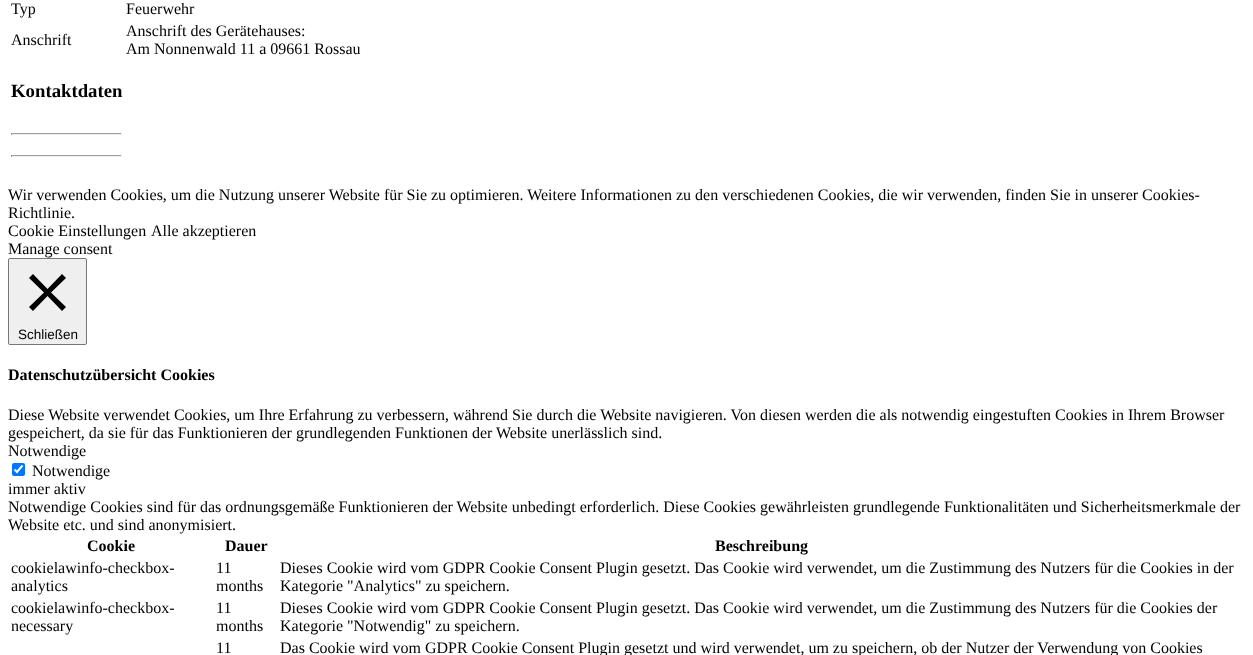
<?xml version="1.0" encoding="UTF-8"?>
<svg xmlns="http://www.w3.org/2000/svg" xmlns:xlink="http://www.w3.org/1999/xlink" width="1253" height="655">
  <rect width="100%" height="100%" fill="#ffffff" />
  <rect x="11" y="133" width="111" height="1" fill="#9f9f9f" />
  <rect x="121" y="133" width="1" height="2" fill="#eeeeee" />
  <rect x="11" y="134" width="111" height="1" fill="#eeeeee" />
  <rect x="11" y="133" width="1" height="2" fill="#9f9f9f" />
  <rect x="11" y="155" width="111" height="1" fill="#9f9f9f" />
  <rect x="121" y="155" width="1" height="2" fill="#eeeeee" />
  <rect x="11" y="156" width="111" height="1" fill="#eeeeee" />
  <rect x="11" y="155" width="1" height="2" fill="#9f9f9f" />
  <rect x="8.5" y="258.5" width="78" height="86" rx="1.5" fill="#efefef" stroke="#767676" />
  <path d="M 66 278 l -4 -4 l -14.5 15 l -14.5 -15 l -4 4 l 15 14.5 l -15 14.5 l 4 4 l 14.5 -15 l 14.5 15 l 4 -4 l -15 -14.5 z" fill="#000000" />
  <rect x="12" y="463" width="13" height="13" rx="2" fill="#0075ff" />
  <path d="M 14.5 469.5 l 2.5 2.5 l 5.5 -6.5" fill="none" stroke="#ffffff" stroke-width="2.1" />
  <text x="11" y="14" style="font-family: Liberation Serif; font-size: 16px; fill: #000000">Typ</text>
  <text x="126" y="14" style="font-family: Liberation Serif; font-size: 16px; fill: #000000">Feuerwehr</text>
  <text x="11" y="45" style="font-family: Liberation Serif; font-size: 16px; fill: #000000">Anschrift</text>
  <text x="126" y="36" style="font-family: Liberation Serif; font-size: 16px; fill: #000000">Anschrift des Gerätehauses:</text>
  <text x="126" y="54" style="font-family: Liberation Serif; font-size: 16px; fill: #000000">Am Nonnenwald 11 a 09661 Rossau</text>
  <text x="11" y="97" style="font-family: Liberation Serif; font-size: 18.75px; font-weight: bold; fill: #000000">Kontaktdaten</text>
  <text x="8" y="200" style="font-family: Liberation Serif; font-size: 16px; fill: #000000">Wir verwenden Cookies, um die Nutzung unserer Website für Sie zu optimieren. Weitere Informationen zu den verschiedenen Cookies, die wir verwenden, finden Sie in unserer Cookies-</text>
  <text x="8" y="218" style="font-family: Liberation Serif; font-size: 16px; fill: #000000">Richtlinie.</text>
  <text x="8" y="236" style="font-family: Liberation Serif; font-size: 16px; fill: #000000">Cookie Einstellungen</text>
  <text x="151" y="236" style="font-family: Liberation Serif; font-size: 16px; fill: #000000">Alle akzeptieren</text>
  <text x="8" y="254" style="font-family: Liberation Serif; font-size: 16px; fill: #000000">Manage consent</text>
  <text x="18" y="339" style="font-family: Liberation Sans; font-size: 13.5px; fill: #000000">Schließen</text>
  <text x="8" y="380" style="font-family: Liberation Serif; font-size: 16px; font-weight: bold; fill: #000000">Datenschutzübersicht Cookies</text>
  <text x="8" y="420" style="font-family: Liberation Serif; font-size: 16px; fill: #000000">Diese Website verwendet Cookies, um Ihre Erfahrung zu verbessern, während Sie durch die Website navigieren. Von diesen werden die als notwendig eingestuften Cookies in Ihrem Browser</text>
  <text x="8" y="438" style="font-family: Liberation Serif; font-size: 16px; fill: #000000">gespeichert, da sie für das Funktionieren der grundlegenden Funktionen der Website unerlässlich sind.</text>
  <text x="8" y="456" style="font-family: Liberation Serif; font-size: 16px; fill: #000000">Notwendige</text>
  <text x="32" y="476" style="font-family: Liberation Serif; font-size: 16px; fill: #000000">Notwendige</text>
  <text x="8" y="494" style="font-family: Liberation Serif; font-size: 16px; fill: #000000">immer aktiv</text>
  <text x="8" y="512" style="font-family: Liberation Serif; font-size: 16px; fill: #000000">Notwendige Cookies sind für das ordnungsgemäße Funktionieren der Website unbedingt erforderlich. Diese Cookies gewährleisten grundlegende Funktionalitäten und Sicherheitsmerkmale der</text>
  <text x="8" y="530" style="font-family: Liberation Serif; font-size: 16px; fill: #000000">Website etc. und sind anonymisiert.</text>
  <text x="87" y="551" style="font-family: Liberation Serif; font-size: 16px; font-weight: bold; fill: #000000">Cookie</text>
  <text x="225" y="551" style="font-family: Liberation Serif; font-size: 16px; font-weight: bold; fill: #000000">Dauer</text>
  <text x="715" y="551" style="font-family: Liberation Serif; font-size: 16px; font-weight: bold; fill: #000000">Beschreibung</text>
  <text x="11" y="573" style="font-family: Liberation Serif; font-size: 16px; fill: #000000">cookielawinfo-checkbox-</text>
  <text x="11" y="591" style="font-family: Liberation Serif; font-size: 16px; fill: #000000">analytics</text>
  <text x="216" y="573" style="font-family: Liberation Serif; font-size: 16px; fill: #000000">11</text>
  <text x="216" y="591" style="font-family: Liberation Serif; font-size: 16px; fill: #000000">months</text>
  <text x="280" y="573" style="font-family: Liberation Serif; font-size: 16px; fill: #000000">Dieses Cookie wird vom GDPR Cookie Consent Plugin gesetzt. Das Cookie wird verwendet, um die Zustimmung des Nutzers für die Cookies in der</text>
  <text x="280" y="591" style="font-family: Liberation Serif; font-size: 16px; fill: #000000">Kategorie "Analytics" zu speichern.</text>
  <text x="11" y="613" style="font-family: Liberation Serif; font-size: 16px; fill: #000000">cookielawinfo-checkbox-</text>
  <text x="11" y="631" style="font-family: Liberation Serif; font-size: 16px; fill: #000000">necessary</text>
  <text x="216" y="613" style="font-family: Liberation Serif; font-size: 16px; fill: #000000">11</text>
  <text x="216" y="631" style="font-family: Liberation Serif; font-size: 16px; fill: #000000">months</text>
  <text x="280" y="613" style="font-family: Liberation Serif; font-size: 16px; fill: #000000">Dieses Cookie wird vom GDPR Cookie Consent Plugin gesetzt. Das Cookie wird verwendet, um die Zustimmung des Nutzers für die Cookies der</text>
  <text x="280" y="631" style="font-family: Liberation Serif; font-size: 16px; fill: #000000">Kategorie "Notwendig" zu speichern.</text>
  <text x="216" y="653" style="font-family: Liberation Serif; font-size: 16px; fill: #000000">11</text>
  <text x="280" y="653" style="font-family: Liberation Serif; font-size: 16px; fill: #000000">Das Cookie wird vom GDPR Cookie Consent Plugin gesetzt und wird verwendet, um zu speichern, ob der Nutzer der Verwendung von Cookies</text>
</svg>
